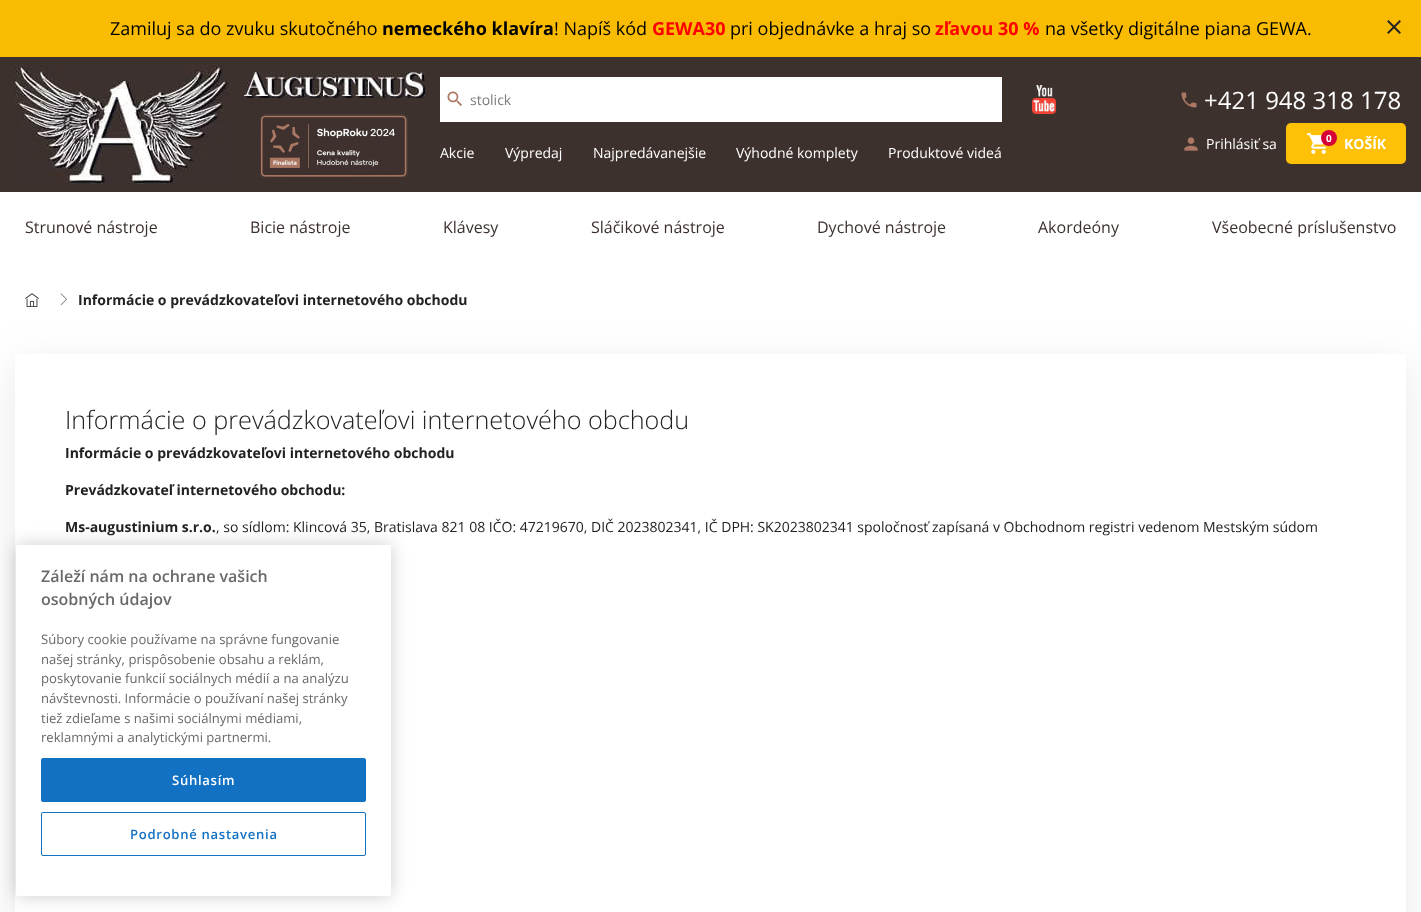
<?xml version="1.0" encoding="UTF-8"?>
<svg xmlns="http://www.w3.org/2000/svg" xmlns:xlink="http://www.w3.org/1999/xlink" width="1421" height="912">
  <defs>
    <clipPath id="clip1"><path d="M 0 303 h 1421 v 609 h -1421 z m 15 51 h 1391 v 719 h -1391 z" clip-rule="evenodd" /></clipPath>
  </defs>
  <rect width="100%" height="100%" fill="#ffffff" />
  <rect width="1421" height="57" fill="#fabc02" />
  <image x="1387" y="20" width="14" height="14" xlink:href="image1.png" />
  <rect y="57" width="1421" height="135" fill="#3d312e" />
  <image x="15" y="65" width="214" height="119" xlink:href="image2.png" />
  <image x="244" y="72" width="181" height="26" xlink:href="image3.png" />
  <image x="259" y="114" width="149" height="64" xlink:href="image4.png" />
  <rect x="440" y="77" width="562" height="45" fill="#ffffff" />
  <image x="447" y="91" width="15" height="15" xlink:href="image5.png" />
  <image x="1032" y="85" width="24" height="29" xlink:href="image6.png" />
  <image x="1181" y="92" width="16" height="16" xlink:href="image7.png" />
  <image x="1184" y="137" width="14" height="14" xlink:href="image8.png" />
  <rect x="1286" y="123" width="120" height="41" rx="5" fill="#ffc107" />
  <image x="1307" y="133" width="19" height="21" xlink:href="image9.png" />
  <circle cx="1329" cy="138" r="8" fill="#d60037" />
  <image x="25" y="293" width="14" height="14" xlink:href="image10.png" />
  <image x="60" y="293" width="7" height="13" xlink:href="image11.png" />
  <g clip-path="url(#clip1)">
    <rect x="15" y="364" width="1391" height="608" fill="#9e9e9e" fill-opacity="0.23" filter="blur(20px)" />
  </g>
  <rect x="16" y="545" width="375" height="351" rx="2.5" fill="#000000" fill-opacity="0.2" filter="blur(9px)" />
  <rect x="16" y="545" width="375" height="351" rx="2.5" fill="#ffffff" />
  <rect x="41.5" y="758.5" width="324" height="43" rx="1.5" fill="#1371c3" stroke="#1371c3" />
  <rect x="41.5" y="812.5" width="324" height="43" rx="1.5" fill="none" stroke="#1371c3" />
  <text x="110" y="35" style="font-family: Open Sans; font-size: 18px; fill: #000000">Zamiluj sa do zvuku skutočného</text>
  <text x="382" y="35" style="font-family: Open Sans; font-size: 18px; font-weight: bold; fill: #000000">nemeckého klavíra</text>
  <text x="554" y="35" style="font-family: Open Sans; font-size: 18px; fill: #000000">! Napíš kód</text>
  <text x="652" y="35" style="font-family: Open Sans; font-size: 18px; font-weight: bold; fill: #ff0000">GEWA30</text>
  <text x="730" y="35" style="font-family: Open Sans; font-size: 18px; fill: #000000">pri objednávke a hraj so</text>
  <text x="935" y="35" style="font-family: Open Sans; font-size: 18px; font-weight: bold; fill: #ff0000">zľavou 30 %</text>
  <text x="1045" y="35" style="font-family: Open Sans; font-size: 18px; fill: #000000">na všetky digitálne piana GEWA.</text>
  <text x="470" y="105" style="font-family: Open Sans; font-size: 14px; fill: #7c7c7c">stolick</text>
  <text x="440" y="158" style="font-family: Open Sans; font-size: 14px; fill: #ffffff">Akcie</text>
  <text x="505" y="158" style="font-family: Open Sans; font-size: 14px; fill: #ffffff">Výpredaj</text>
  <text x="593" y="158" style="font-family: Open Sans; font-size: 14px; fill: #ffffff">Najpredávanejšie</text>
  <text x="736" y="158" style="font-family: Open Sans; font-size: 14px; fill: #ffffff">Výhodné komplety</text>
  <text x="888" y="158" style="font-family: Open Sans; font-size: 14px; fill: #ffffff">Produktové videá</text>
  <text x="1204" y="109" style="font-family: Open Sans; font-size: 24px; fill: #ffffff">+421 948 318 178</text>
  <text x="1206" y="149" style="font-family: Open Sans; font-size: 14px; fill: #ffffff">Prihlásiť sa</text>
  <text x="1326" y="142" style="font-family: Open Sans; font-size: 10px; font-weight: bold; fill: #ffffff">0</text>
  <text x="1344" y="149" style="font-family: Open Sans; font-size: 14px; font-weight: bold; fill: #ffffff">KOŠÍK</text>
  <text x="25" y="233" style="font-family: Open Sans; font-size: 16px; fill: #3d312e">Strunové nástroje</text>
  <text x="250" y="233" style="font-family: Open Sans; font-size: 16px; fill: #3d312e">Bicie nástroje</text>
  <text x="443" y="233" style="font-family: Open Sans; font-size: 16px; fill: #3d312e">Klávesy</text>
  <text x="591" y="233" style="font-family: Open Sans; font-size: 16px; fill: #3d312e">Sláčikové nástroje</text>
  <text x="817" y="233" style="font-family: Open Sans; font-size: 16px; fill: #3d312e">Dychové nástroje</text>
  <text x="1038" y="233" style="font-family: Open Sans; font-size: 16px; fill: #3d312e">Akordeóny</text>
  <text x="1212" y="233" style="font-family: Open Sans; font-size: 16px; fill: #3d312e">Všeobecné príslušenstvo</text>
  <text x="78" y="305" style="font-family: Open Sans; font-size: 14px; font-weight: bold; fill: #222222">Informácie o prevádzkovateľovi internetového obchodu</text>
  <text x="65" y="429" style="font-family: Open Sans; font-size: 25.2px; font-weight: 300; fill: #222222">Informácie o prevádzkovateľovi internetového obchodu</text>
  <text x="65" y="458" style="font-family: Open Sans; font-size: 14px; font-weight: bold; fill: #222222">Informácie o prevádzkovateľovi internetového obchodu</text>
  <text x="65" y="495" style="font-family: Open Sans; font-size: 14px; font-weight: bold; fill: #222222">Prevádzkovateľ internetového obchodu:</text>
  <text x="65" y="532" style="font-family: Open Sans; font-size: 14px; font-weight: bold; fill: #222222">Ms-augustinium s.r.o.</text>
  <text x="216" y="532" style="font-family: Open Sans; font-size: 14px; fill: #222222">, so sídlom: Klincová 35, Bratislava 821 08 IČO: 47219670, DIČ 2023802341, IČ DPH: SK2023802341 spoločnosť zapísaná v Obchodnom registri vedenom Mestským súdom</text>
  <text x="41" y="582" style="font-family: Open Sans; font-size: 16px; font-weight: 600; fill: #696969">Záleží nám na ochrane vašich</text>
  <text x="41" y="605" style="font-family: Open Sans; font-size: 16px; font-weight: 600; fill: #696969">osobných údajov</text>
  <text x="41" y="644" style="font-family: Open Sans; font-size: 13.1px; fill: #696969">Súbory cookie používame na správne fungovanie</text>
  <text x="41" y="664" style="font-family: Open Sans; font-size: 13.1px; fill: #696969">našej stránky, prispôsobenie obsahu a reklám,</text>
  <text x="41" y="683" style="font-family: Open Sans; font-size: 13.1px; fill: #696969">poskytovanie funkcií sociálnych médií a na analýzu</text>
  <text x="41" y="703" style="font-family: Open Sans; font-size: 13.1px; fill: #696969">návštevnosti. Informácie o používaní našej stránky</text>
  <text x="41" y="723" style="font-family: Open Sans; font-size: 13.1px; fill: #696969">tiež zdieľame s našimi sociálnymi médiami,</text>
  <text x="41" y="742" style="font-family: Open Sans; font-size: 13.1px; fill: #696969">reklamnými a analytickými partnermi.</text>
  <text x="172" y="785" style="font-family: Open Sans; font-size: 13.1px; font-weight: 600; letter-spacing: 0.7px; fill: #ffffff">Súhlasím</text>
  <text x="130" y="839" style="font-family: Open Sans; font-size: 13.1px; font-weight: 600; letter-spacing: 0.7px; fill: #1371c3">Podrobné nastavenia</text>
</svg>
